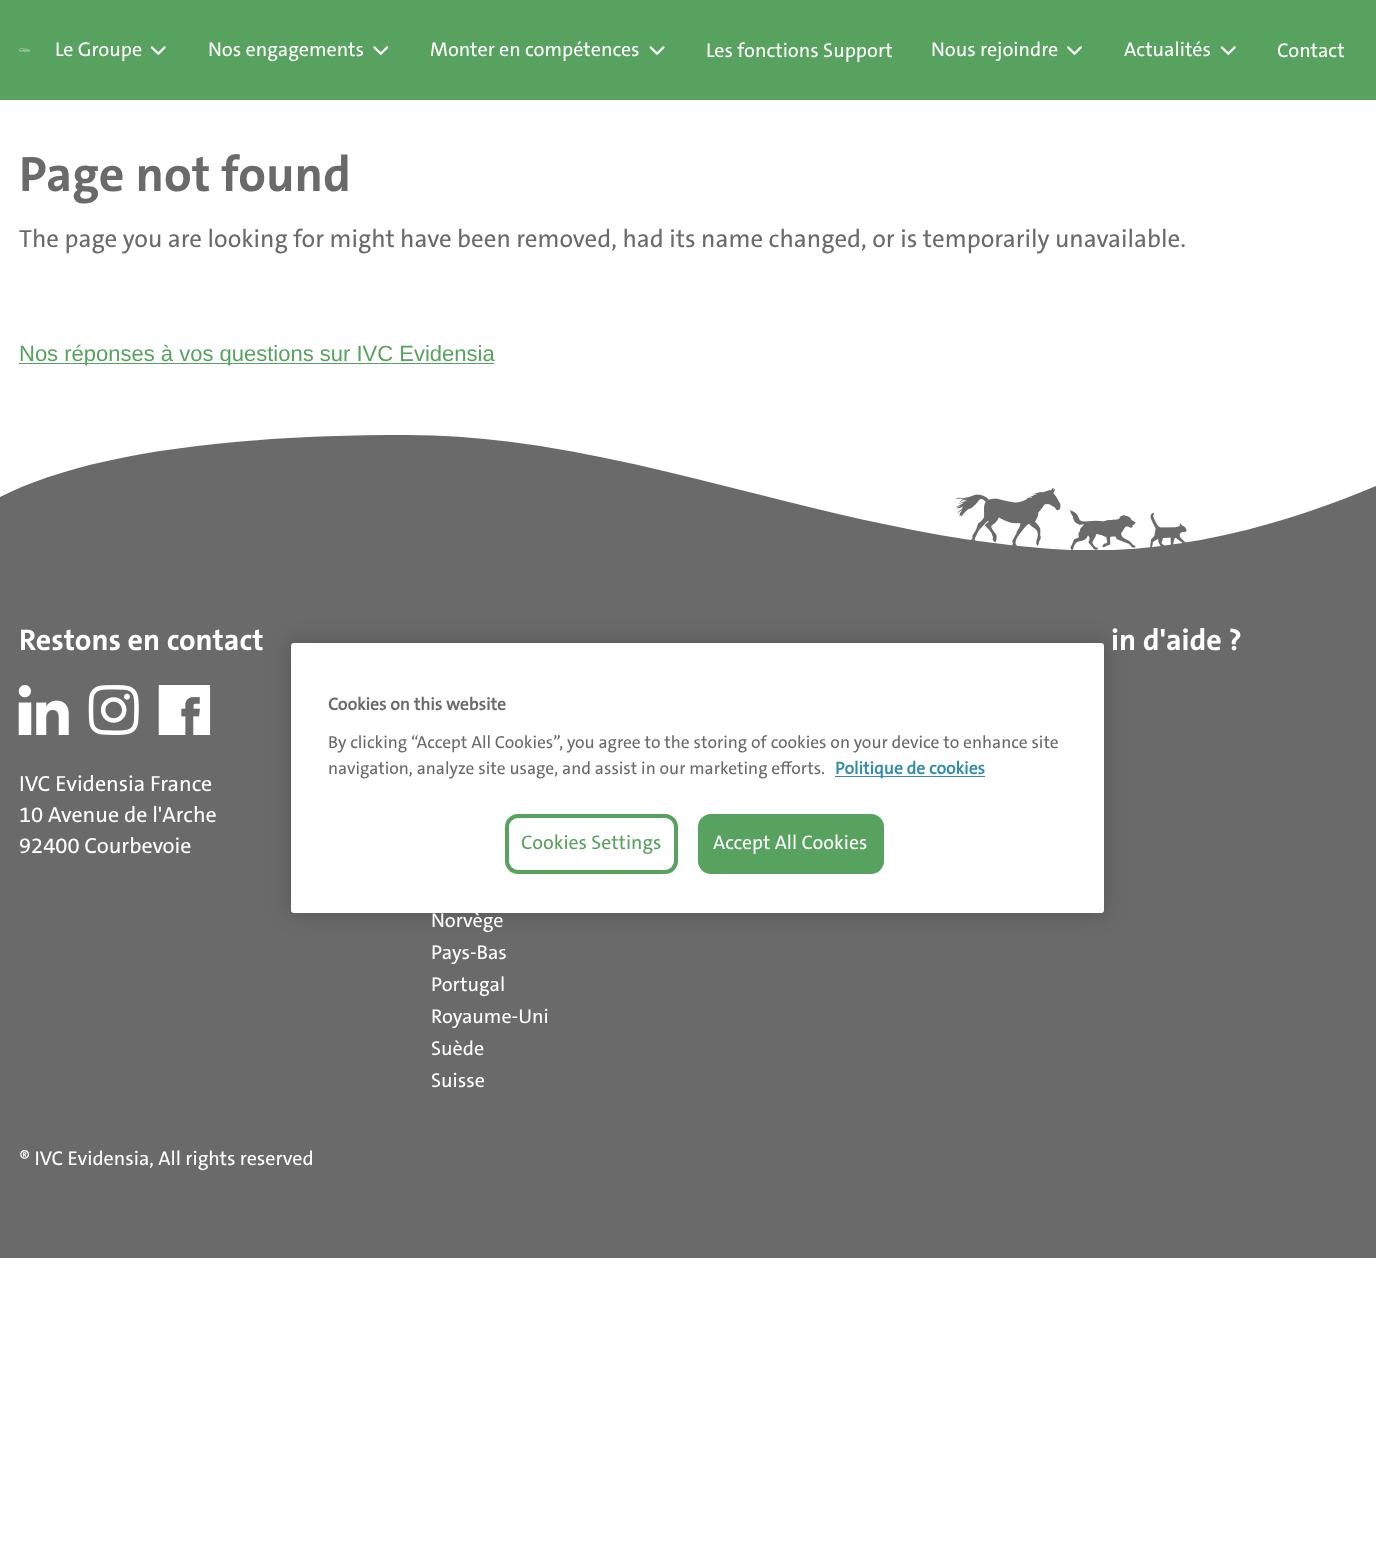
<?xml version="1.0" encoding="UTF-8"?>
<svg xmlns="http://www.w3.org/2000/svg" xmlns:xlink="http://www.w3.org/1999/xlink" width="1376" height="1554">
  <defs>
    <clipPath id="clip1"><rect y="435" width="1376" height="116" /></clipPath>
  </defs>
  <rect width="100%" height="100%" fill="#ffffff" />
  <rect width="1376" height="100" fill="#57a25f" />
  <image x="19" y="48" width="11" height="4" xlink:href="image1.png" />
  <image x="150" y="46" width="16" height="9" xlink:href="image2.png" />
  <image x="373" y="46" width="16" height="9" xlink:href="image3.png" />
  <image x="649" y="46" width="16" height="9" xlink:href="image4.png" />
  <image x="1067" y="46" width="15" height="9" xlink:href="image5.png" />
  <image x="1220" y="46" width="16" height="9" xlink:href="image2.png" />
  <rect x="19" y="363" width="475" height="1" fill="#57a25f" />
  <rect y="550" width="1376" height="708" fill="#6a6a6a" />
  <g clip-path="url(#clip1)">
    <path d="M 1376 552 v -66 c -112 47 -214 68 -306 64 c -237 -12 -441 -115 -663 -115 c -190 0 -326 21 -407 62 v 55 z" fill="#6a6a6a" fill-rule="evenodd" />
  </g>
  <image x="956" y="487" width="231" height="63" xlink:href="image6.png" />
  <image x="18" y="685" width="51" height="50" xlink:href="image7.png" />
  <image x="88" y="685" width="51" height="50" xlink:href="image8.png" />
  <image x="158" y="685" width="53" height="50" xlink:href="image9.png" />
  <rect x="291" y="643" width="813" height="270" rx="3" fill="#000000" fill-opacity="0.2" filter="blur(11px)" />
  <rect x="291" y="643" width="813" height="270" rx="3" fill="#ffffff" />
  <rect x="835" y="776" width="150" height="1" fill="#338daa" />
  <rect x="507" y="816" width="169" height="56" rx="11" fill="none" stroke="#57a25f" stroke-width="4" />
  <rect x="700" y="816" width="182" height="56" rx="11" fill="#57a25f" stroke="#57a25f" stroke-width="4" />
  <text x="55" y="56" style="font-family: 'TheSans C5'; font-size: 20px; font-weight: 500; fill: #ffffff">Le Groupe</text>
  <text x="208" y="56" style="font-family: 'TheSans C5'; font-size: 20px; font-weight: 500; fill: #ffffff">Nos engagements</text>
  <text x="430" y="56" style="font-family: 'TheSans C5'; font-size: 20px; font-weight: 500; fill: #ffffff">Monter en compétences</text>
  <text x="706" y="57" style="font-family: 'TheSans C5'; font-size: 20px; font-weight: 500; fill: #ffffff">Les fonctions Support</text>
  <text x="931" y="56" style="font-family: 'TheSans C5'; font-size: 20px; font-weight: 500; fill: #ffffff">Nous rejoindre</text>
  <text x="1124" y="56" style="font-family: 'TheSans C5'; font-size: 20px; font-weight: 500; fill: #ffffff">Actualités</text>
  <text x="1277" y="57" style="font-family: 'TheSans C5'; font-size: 20px; font-weight: 500; fill: #ffffff">Contact</text>
  <text x="19" y="191" style="font-family: 'TheSans C5'; font-size: 50px; font-weight: bold; fill: #6a6a6a">Page not found</text>
  <text x="19" y="247" style="font-family: 'TheSans C5'; font-size: 25px; font-weight: 500; fill: #6a6a6a">The page you are looking for might have been removed, had its name changed, or is temporarily unavailable.</text>
  <text x="19" y="361" style="font-family: Liberation Sans; font-size: 22px; fill: #57a25f">Nos réponses à vos questions sur IVC Evidensia</text>
  <text x="19" y="650" style="font-family: 'TheSans C5'; font-size: 30px; font-weight: bold; fill: #ffffff">Restons en contact</text>
  <text x="19" y="791" style="font-family: 'TheSans C5'; font-size: 22px; font-weight: 500; fill: #ffffff">IVC Evidensia France</text>
  <text x="19" y="822" style="font-family: 'TheSans C5'; font-size: 22px; font-weight: 500; fill: #ffffff">10 Avenue de l'Arche</text>
  <text x="19" y="853" style="font-family: 'TheSans C5'; font-size: 22px; font-weight: 500; fill: #ffffff">92400 Courbevoie</text>
  <text x="1111" y="650" style="font-family: 'TheSans C5'; font-size: 30px; font-weight: bold; fill: #ffffff">in d'aide ?</text>
  <text x="431" y="927" style="font-family: 'TheSans C5'; font-size: 20px; font-weight: 500; fill: #ffffff">Norvège</text>
  <text x="431" y="959" style="font-family: 'TheSans C5'; font-size: 20px; font-weight: 500; fill: #ffffff">Pays-Bas</text>
  <text x="431" y="991" style="font-family: 'TheSans C5'; font-size: 20px; font-weight: 500; fill: #ffffff">Portugal</text>
  <text x="431" y="1023" style="font-family: 'TheSans C5'; font-size: 20px; font-weight: 500; fill: #ffffff">Royaume-Uni</text>
  <text x="431" y="1055" style="font-family: 'TheSans C5'; font-size: 20px; font-weight: 500; fill: #ffffff">Suède</text>
  <text x="431" y="1087" style="font-family: 'TheSans C5'; font-size: 20px; font-weight: 500; fill: #ffffff">Suisse</text>
  <text x="19" y="1165" style="font-family: 'TheSans C5'; font-size: 20px; font-weight: 500; fill: #ffffff">® IVC Evidensia, All rights reserved</text>
  <text x="328" y="710" style="font-family: 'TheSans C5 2'; font-size: 17.5px; font-weight: bold; fill: #6a6a6a">Cookies on this website</text>
  <text x="328" y="748" style="font-family: 'TheSans C5'; font-size: 17.5px; font-weight: 500; fill: #6a6a6a">By clicking “Accept All Cookies”, you agree to the storing of cookies on your device to enhance site</text>
  <text x="328" y="774" style="font-family: 'TheSans C5'; font-size: 17.5px; font-weight: 500; fill: #6a6a6a">navigation, analyze site usage, and assist in our marketing efforts.</text>
  <text x="835" y="774" style="font-family: 'TheSans C5 2'; font-size: 17.5px; font-weight: bold; fill: #338daa">Politique de cookies</text>
  <text x="521" y="849" style="font-family: 'TheSans C5'; font-size: 19.75px; font-weight: 500; fill: #57a25f">Cookies Settings</text>
  <text x="713" y="849" style="font-family: 'TheSans C5'; font-size: 19.75px; font-weight: 500; fill: #ffffff">Accept All Cookies</text>
</svg>
